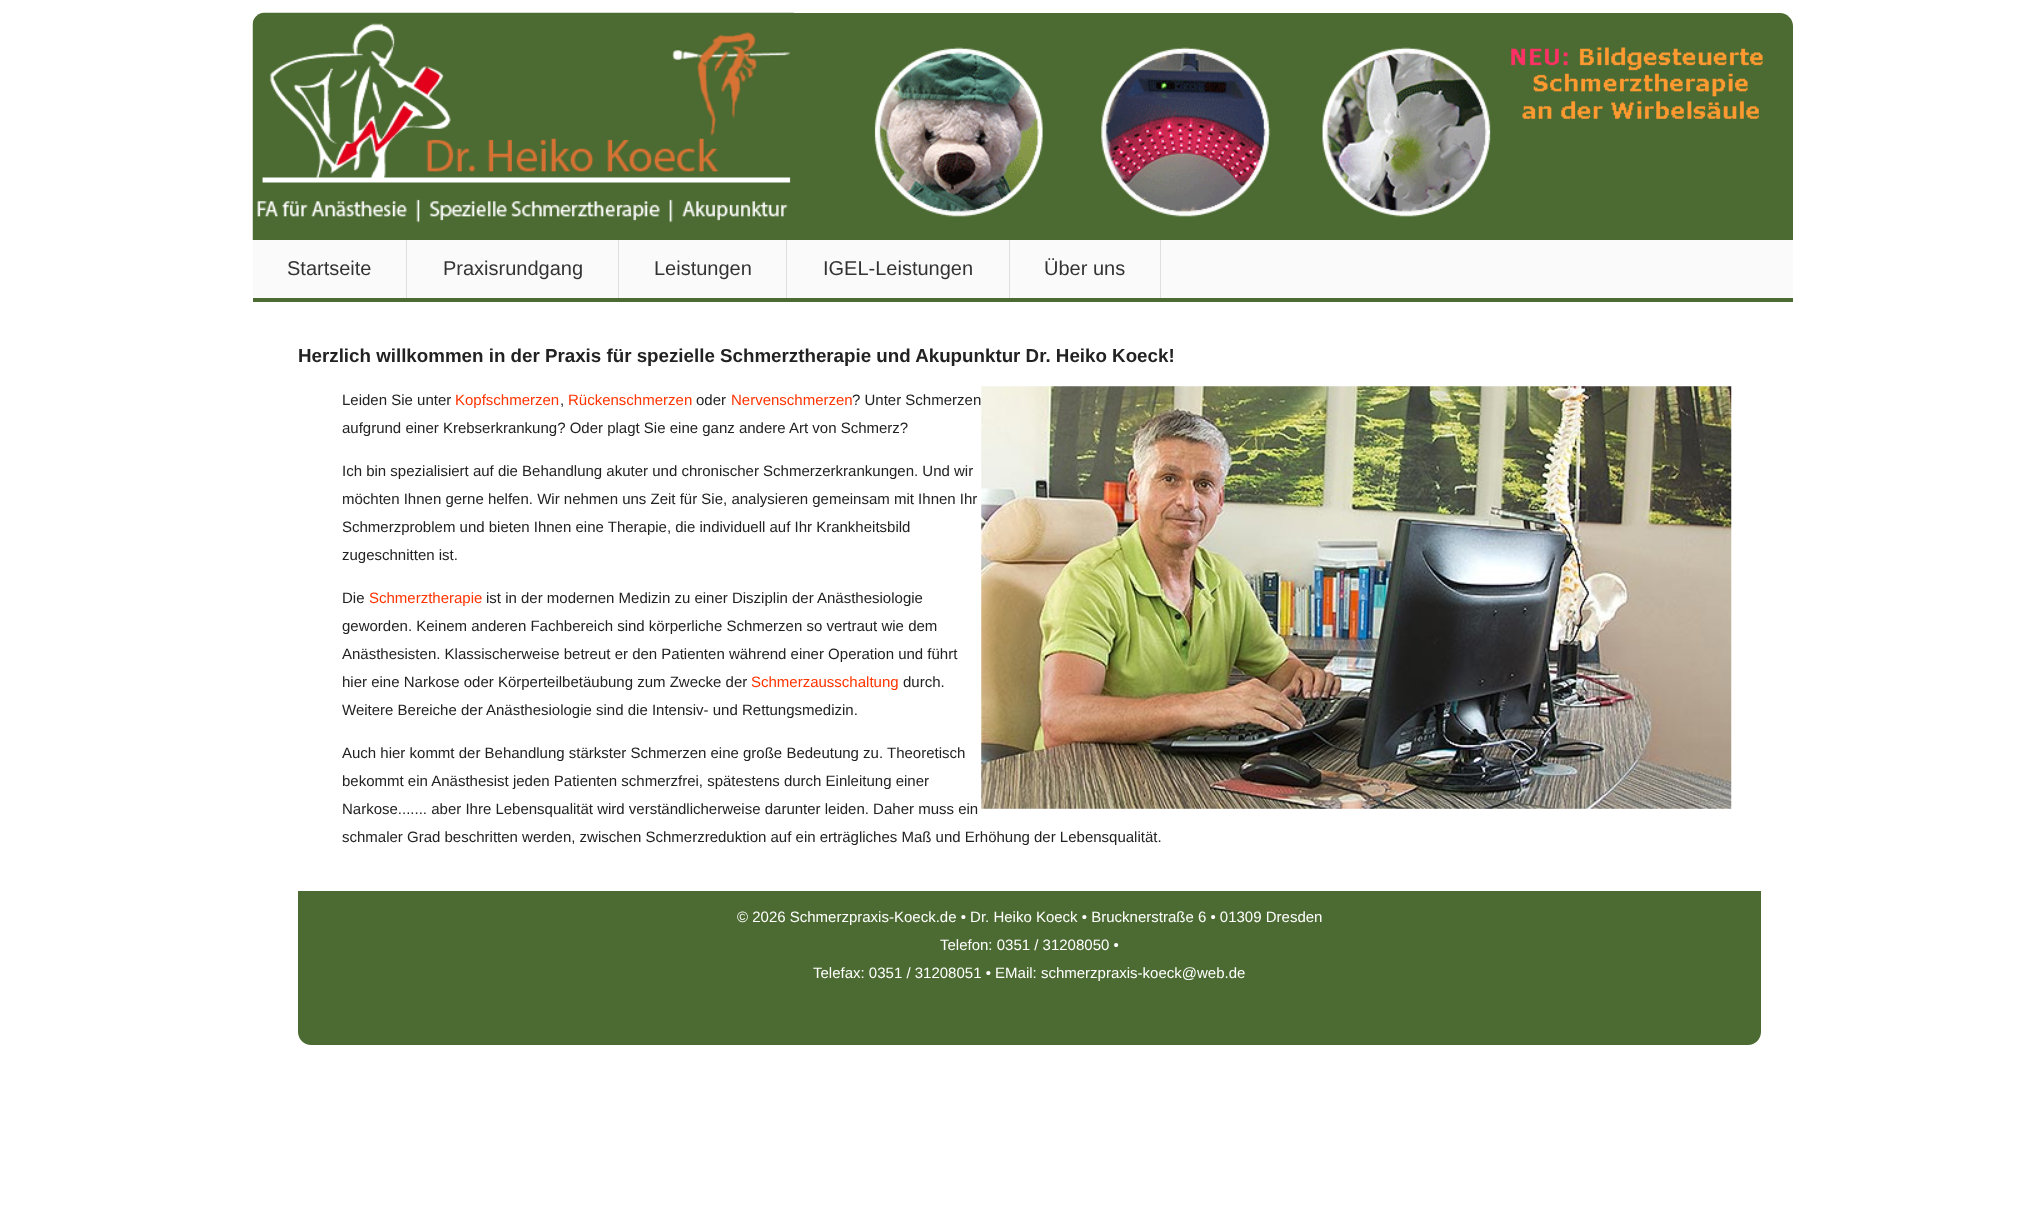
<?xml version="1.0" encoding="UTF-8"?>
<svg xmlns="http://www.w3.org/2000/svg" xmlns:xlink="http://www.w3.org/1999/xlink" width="2043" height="1219">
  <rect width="100%" height="100%" fill="#ffffff" />
  <path d="M 266 13 h 1514 c 7 0 13 6 13 13 v 214 h -1540 v -214 c 0 -7 6 -13 13 -13 z" fill="#4c6b32" />
  <image x="252" y="12" width="542" height="228" xlink:href="image1.png" />
  <image x="874" y="47" width="617" height="170" xlink:href="image2.png" />
  <image x="1511" y="47" width="252" height="72" xlink:href="image3.png" />
  <rect x="253" y="298" width="1540" height="4" fill="#4c6b32" />
  <rect x="253" y="240" width="1540" height="58" fill="#fafafa" />
  <rect x="406" y="240" width="1" height="58" fill="#dfdfdf" />
  <rect x="618" y="240" width="1" height="58" fill="#dfdfdf" />
  <rect x="786" y="240" width="1" height="58" fill="#dfdfdf" />
  <rect x="1009" y="240" width="1" height="58" fill="#dfdfdf" />
  <rect x="1160" y="240" width="1" height="58" fill="#dfdfdf" />
  <image x="981" y="386" width="751" height="423" xlink:href="image4.png" />
  <path d="M 298 891 h 1463 v 141 c 0 7 -6 13 -13 13 h -1437 c -7 0 -13 -6 -13 -13 z" fill="#4c6b32" />
  <text x="287" y="275" style="font-family: Liberation Sans; font-size: 20px; fill: #333333">Startseite</text>
  <text x="443" y="275" style="font-family: Liberation Sans; font-size: 20px; fill: #333333">Praxisrundgang</text>
  <text x="654" y="275" style="font-family: Liberation Sans; font-size: 20px; fill: #333333">Leistungen</text>
  <text x="823" y="275" style="font-family: Liberation Sans; font-size: 20px; fill: #333333">IGEL-Leistungen</text>
  <text x="1044" y="275" style="font-family: Liberation Sans; font-size: 20px; fill: #333333">Über uns</text>
  <text x="298" y="362" style="font-family: Liberation Sans; font-size: 18.75px; font-weight: bold; fill: #222222">Herzlich willkommen in der Praxis für spezielle Schmerztherapie und Akupunktur Dr. Heiko Koeck!</text>
  <text x="342" y="405" style="font-family: Liberation Sans; font-size: 15px; fill: #222222">Leiden Sie unter</text>
  <text x="455" y="405" style="font-family: Liberation Sans; font-size: 15px; fill: #ff3300">Kopfschmerzen</text>
  <text x="560" y="405" style="font-family: Liberation Sans; font-size: 15px; fill: #222222">,</text>
  <text x="568" y="405" style="font-family: Liberation Sans; font-size: 15px; fill: #ff3300">Rückenschmerzen</text>
  <text x="696" y="405" style="font-family: Liberation Sans; font-size: 15px; fill: #222222">oder</text>
  <text x="731" y="405" style="font-family: Liberation Sans; font-size: 15px; fill: #ff3300">Nervenschmerzen</text>
  <text x="852" y="405" style="font-family: Liberation Sans; font-size: 15px; fill: #222222">? Unter Schmerzen</text>
  <text x="342" y="433" style="font-family: Liberation Sans; font-size: 15px; fill: #222222">aufgrund einer Krebserkrankung? Oder plagt Sie eine ganz andere Art von Schmerz?</text>
  <text x="342" y="476" style="font-family: Liberation Sans; font-size: 15px; fill: #222222">Ich bin spezialisiert auf die Behandlung akuter und chronischer Schmerzerkrankungen. Und wir</text>
  <text x="342" y="504" style="font-family: Liberation Sans; font-size: 15px; fill: #222222">möchten Ihnen gerne helfen. Wir nehmen uns Zeit für Sie, analysieren gemeinsam mit Ihnen Ihr</text>
  <text x="342" y="532" style="font-family: Liberation Sans; font-size: 15px; fill: #222222">Schmerzproblem und bieten Ihnen eine Therapie, die individuell auf Ihr Krankheitsbild</text>
  <text x="342" y="560" style="font-family: Liberation Sans; font-size: 15px; fill: #222222">zugeschnitten ist.</text>
  <text x="342" y="603" style="font-family: Liberation Sans; font-size: 15px; fill: #222222">Die</text>
  <text x="369" y="603" style="font-family: Liberation Sans; font-size: 15px; fill: #ff3300">Schmerztherapie</text>
  <text x="486" y="603" style="font-family: Liberation Sans; font-size: 15px; fill: #222222">ist in der modernen Medizin zu einer Disziplin der Anästhesiologie</text>
  <text x="342" y="631" style="font-family: Liberation Sans; font-size: 15px; fill: #222222">geworden. Keinem anderen Fachbereich sind körperliche Schmerzen so vertraut wie dem</text>
  <text x="342" y="659" style="font-family: Liberation Sans; font-size: 15px; fill: #222222">Anästhesisten. Klassischerweise betreut er den Patienten während einer Operation und führt</text>
  <text x="342" y="687" style="font-family: Liberation Sans; font-size: 15px; fill: #222222">hier eine Narkose oder Körperteilbetäubung zum Zwecke der</text>
  <text x="751" y="687" style="font-family: Liberation Sans; font-size: 15px; fill: #ff3300">Schmerzausschaltung</text>
  <text x="903" y="687" style="font-family: Liberation Sans; font-size: 15px; fill: #222222">durch.</text>
  <text x="342" y="715" style="font-family: Liberation Sans; font-size: 15px; fill: #222222">Weitere Bereiche der Anästhesiologie sind die Intensiv- und Rettungsmedizin.</text>
  <text x="342" y="758" style="font-family: Liberation Sans; font-size: 15px; fill: #222222">Auch hier kommt der Behandlung stärkster Schmerzen eine große Bedeutung zu. Theoretisch</text>
  <text x="342" y="786" style="font-family: Liberation Sans; font-size: 15px; fill: #222222">bekommt ein Anästhesist jeden Patienten schmerzfrei, spätestens durch Einleitung einer</text>
  <text x="342" y="814" style="font-family: Liberation Sans; font-size: 15px; fill: #222222">Narkose....... aber Ihre Lebensqualität wird verständlicherweise darunter leiden. Daher muss ein</text>
  <text x="342" y="842" style="font-family: Liberation Sans; font-size: 15px; fill: #222222">schmaler Grad beschritten werden, zwischen Schmerzreduktion auf ein erträgliches Maß und Erhöhung der Lebensqualität.</text>
  <text x="737" y="922" style="font-family: Liberation Sans; font-size: 15px; fill: #ffffff">© 2026 Schmerzpraxis-Koeck.de • Dr. Heiko Koeck • Brucknerstraße 6 • 01309 Dresden</text>
  <text x="940" y="950" style="font-family: Liberation Sans; font-size: 15px; fill: #ffffff">Telefon: 0351 / 31208050 •</text>
  <text x="813" y="978" style="font-family: Liberation Sans; font-size: 15px; fill: #ffffff">Telefax: 0351 / 31208051 • EMail: schmerzpraxis-koeck@web.de</text>
</svg>
